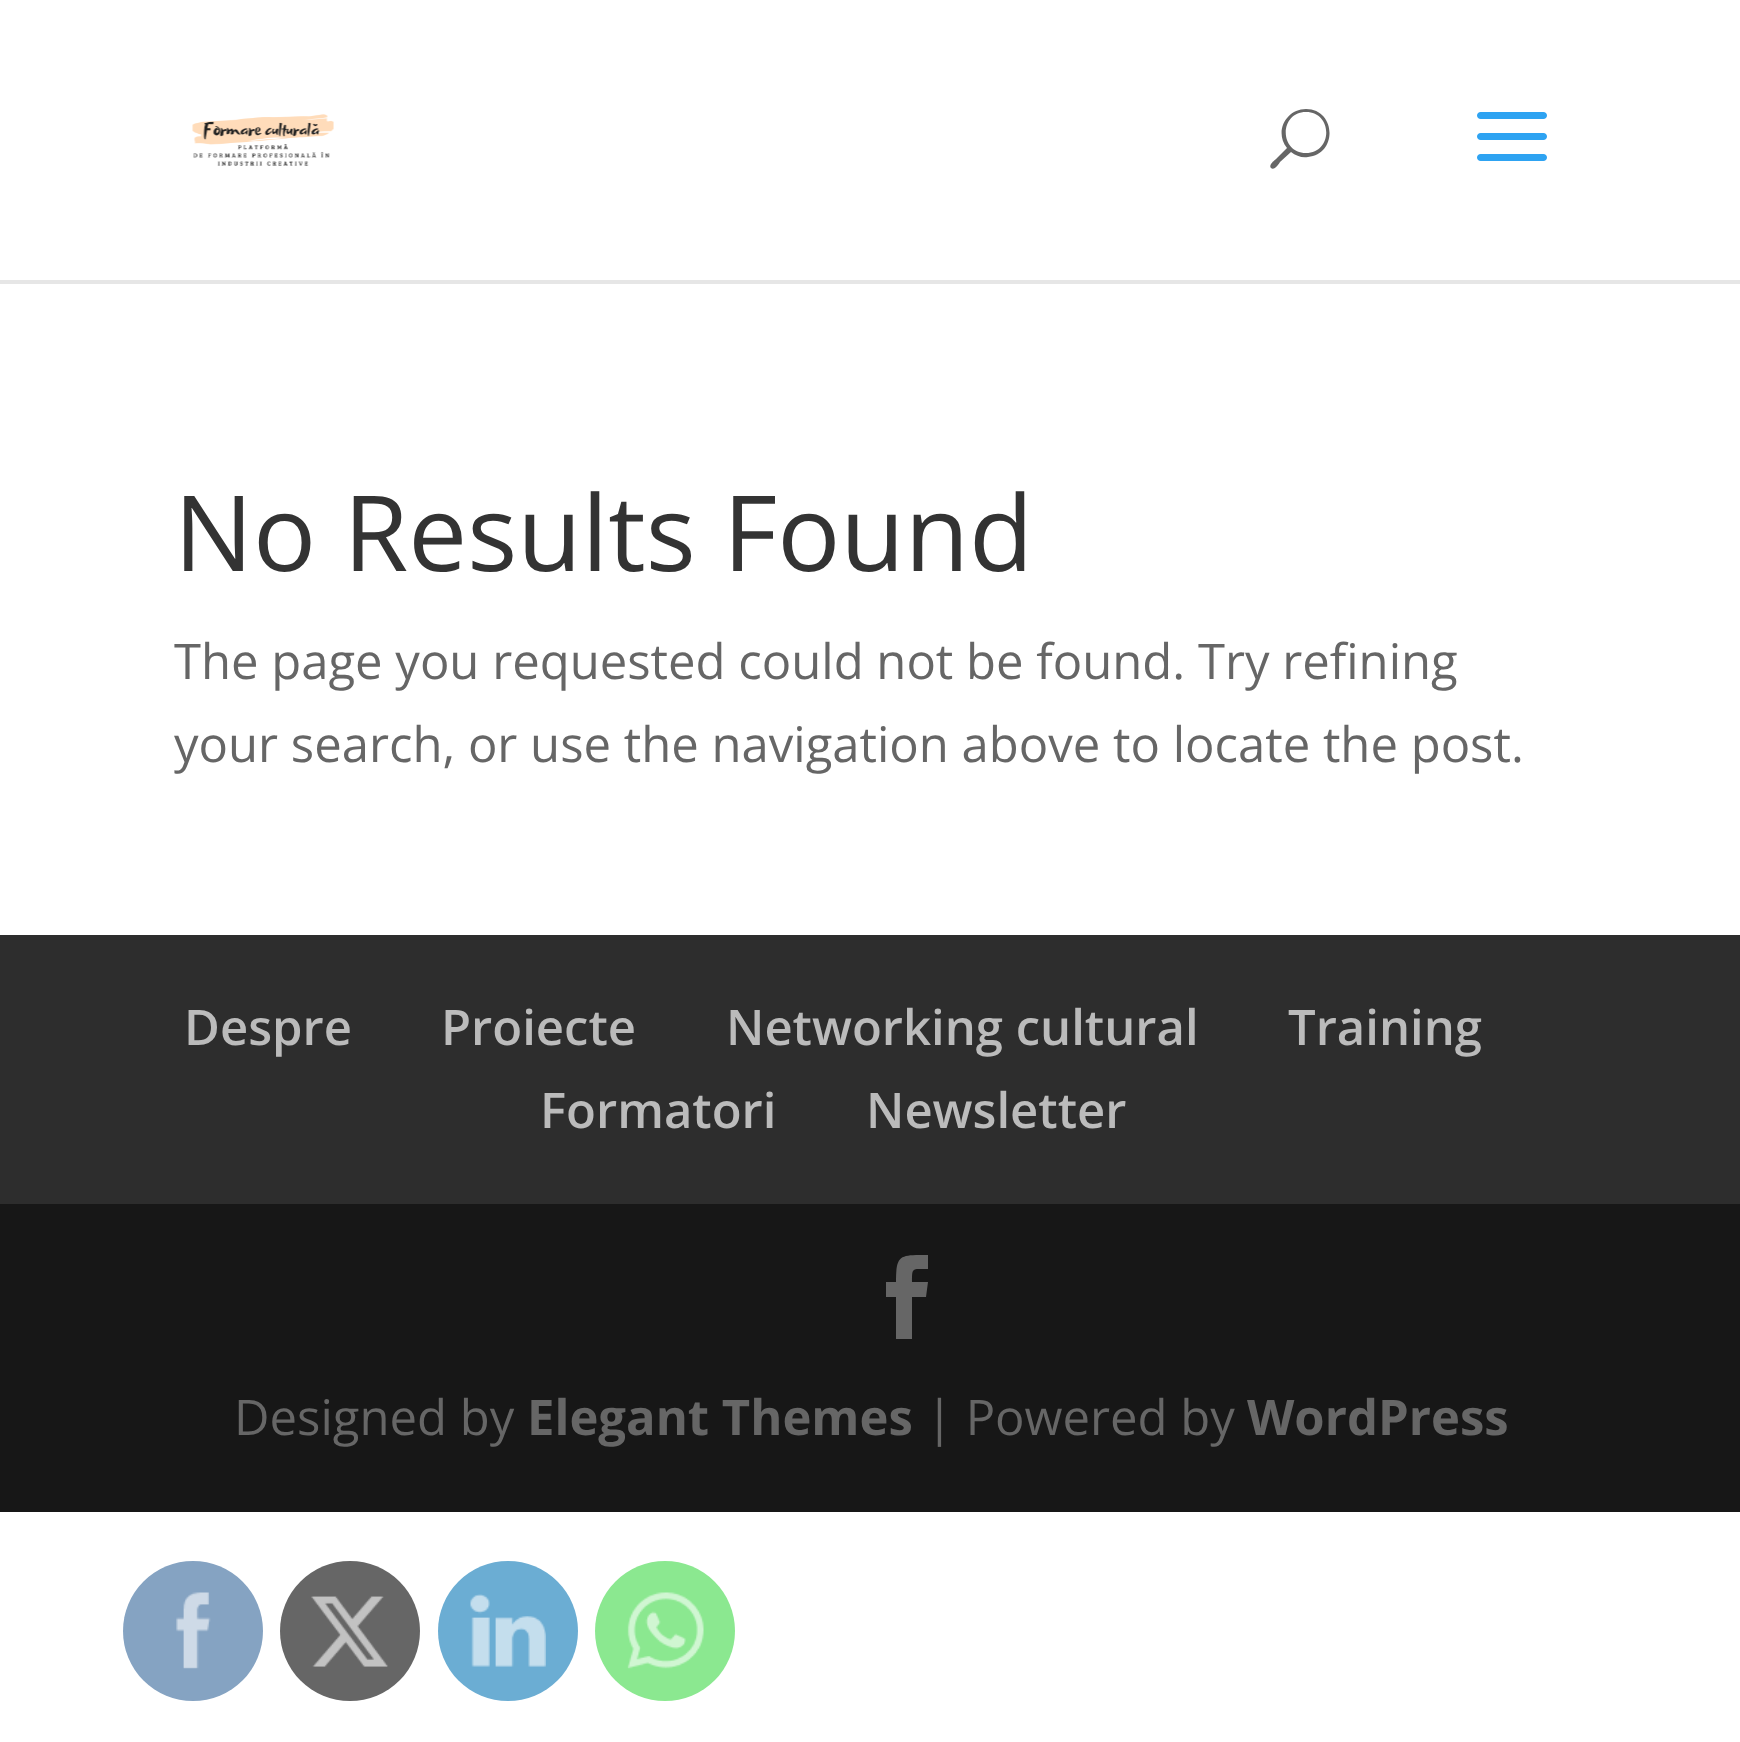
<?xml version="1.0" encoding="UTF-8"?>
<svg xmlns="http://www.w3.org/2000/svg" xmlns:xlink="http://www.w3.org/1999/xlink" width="1740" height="1742">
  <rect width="100%" height="100%" fill="#ffffff" />
  <rect y="280" width="1740" height="4" fill="#e6e6e6" />
  <image x="192" y="114" width="142" height="52" xlink:href="image1.png" />
  <path d="M 1306 109 c -20 0 -32 23 -19 39 l -11 11 c -1 1 -8 6 -5 9 c 3 3 8 -4 9 -6 l 11 -10 c 5 4 11 6 17 5 c 30 -3 28 -48 -2 -48 z m 0 44 c -27 0 -27 -41 0 -41 c 27 0 27 41 0 41 z" fill="#666666" />
  <image x="1477" y="112" width="70" height="49" xlink:href="image2.png" />
  <rect y="935" width="1740" height="269" fill="#2d2d2d" />
  <rect y="1204" width="1740" height="308" fill="#171717" />
  <path d="M 896 1339 h 16 v -42 h 14 l 2 -15 h -16 c 0 -15 0 -13 16 -13 v -14 c -28 0 -32 -1 -32 27 h -10 v 15 h 10 z" fill="#666666" />
  <circle cx="193" cy="1631" r="70" fill="#85a3c2" />
  <image x="176" y="1592" width="35" height="77" xlink:href="image3.png" />
  <circle cx="350" cy="1631" r="70" fill="#666666" />
  <image x="311" y="1596" width="77" height="71" xlink:href="image4.png" />
  <circle cx="508" cy="1631" r="70" fill="#6badd3" />
  <image x="470" y="1594" width="76" height="73" xlink:href="image5.png" />
  <circle cx="665" cy="1631" r="70" fill="#8be890" />
  <image x="627" y="1592" width="77" height="77" xlink:href="image6.png" />
  <text x="174" y="571" style="font-family: Open Sans; font-size: 105px; fill: #333333">No Results Found</text>
  <text x="174" y="679" style="font-family: Open Sans; font-size: 49px; fill: #666666">The page you requested could not be found. Try refining</text>
  <text x="174" y="762" style="font-family: Open Sans; font-size: 49px; fill: #666666">your search, or use the navigation above to locate the post.</text>
  <text x="184" y="1045" style="font-family: Open Sans; font-size: 49px; font-weight: 600; fill: #bbbbbb">Despre</text>
  <text x="441" y="1045" style="font-family: Open Sans; font-size: 49px; font-weight: 600; fill: #bbbbbb">Proiecte</text>
  <text x="726" y="1045" style="font-family: Open Sans; font-size: 49px; font-weight: 600; fill: #bbbbbb">Networking cultural</text>
  <text x="1288" y="1045" style="font-family: Open Sans; font-size: 49px; font-weight: 600; fill: #bbbbbb">Training</text>
  <text x="540" y="1128" style="font-family: Open Sans; font-size: 49px; font-weight: 600; fill: #bbbbbb">Formatori</text>
  <text x="866" y="1128" style="font-family: Open Sans; font-size: 49px; font-weight: 600; fill: #bbbbbb">Newsletter</text>
  <text x="234" y="1435" style="font-family: Open Sans; font-size: 49px; fill: #666666">Designed by</text>
  <text x="527" y="1435" style="font-family: Open Sans; font-size: 49px; font-weight: bold; fill: #666666">Elegant Themes</text>
  <text x="926" y="1435" style="font-family: Open Sans; font-size: 49px; fill: #666666">| Powered by</text>
  <text x="1247" y="1435" style="font-family: Open Sans; font-size: 49px; font-weight: bold; fill: #666666">WordPress</text>
</svg>
